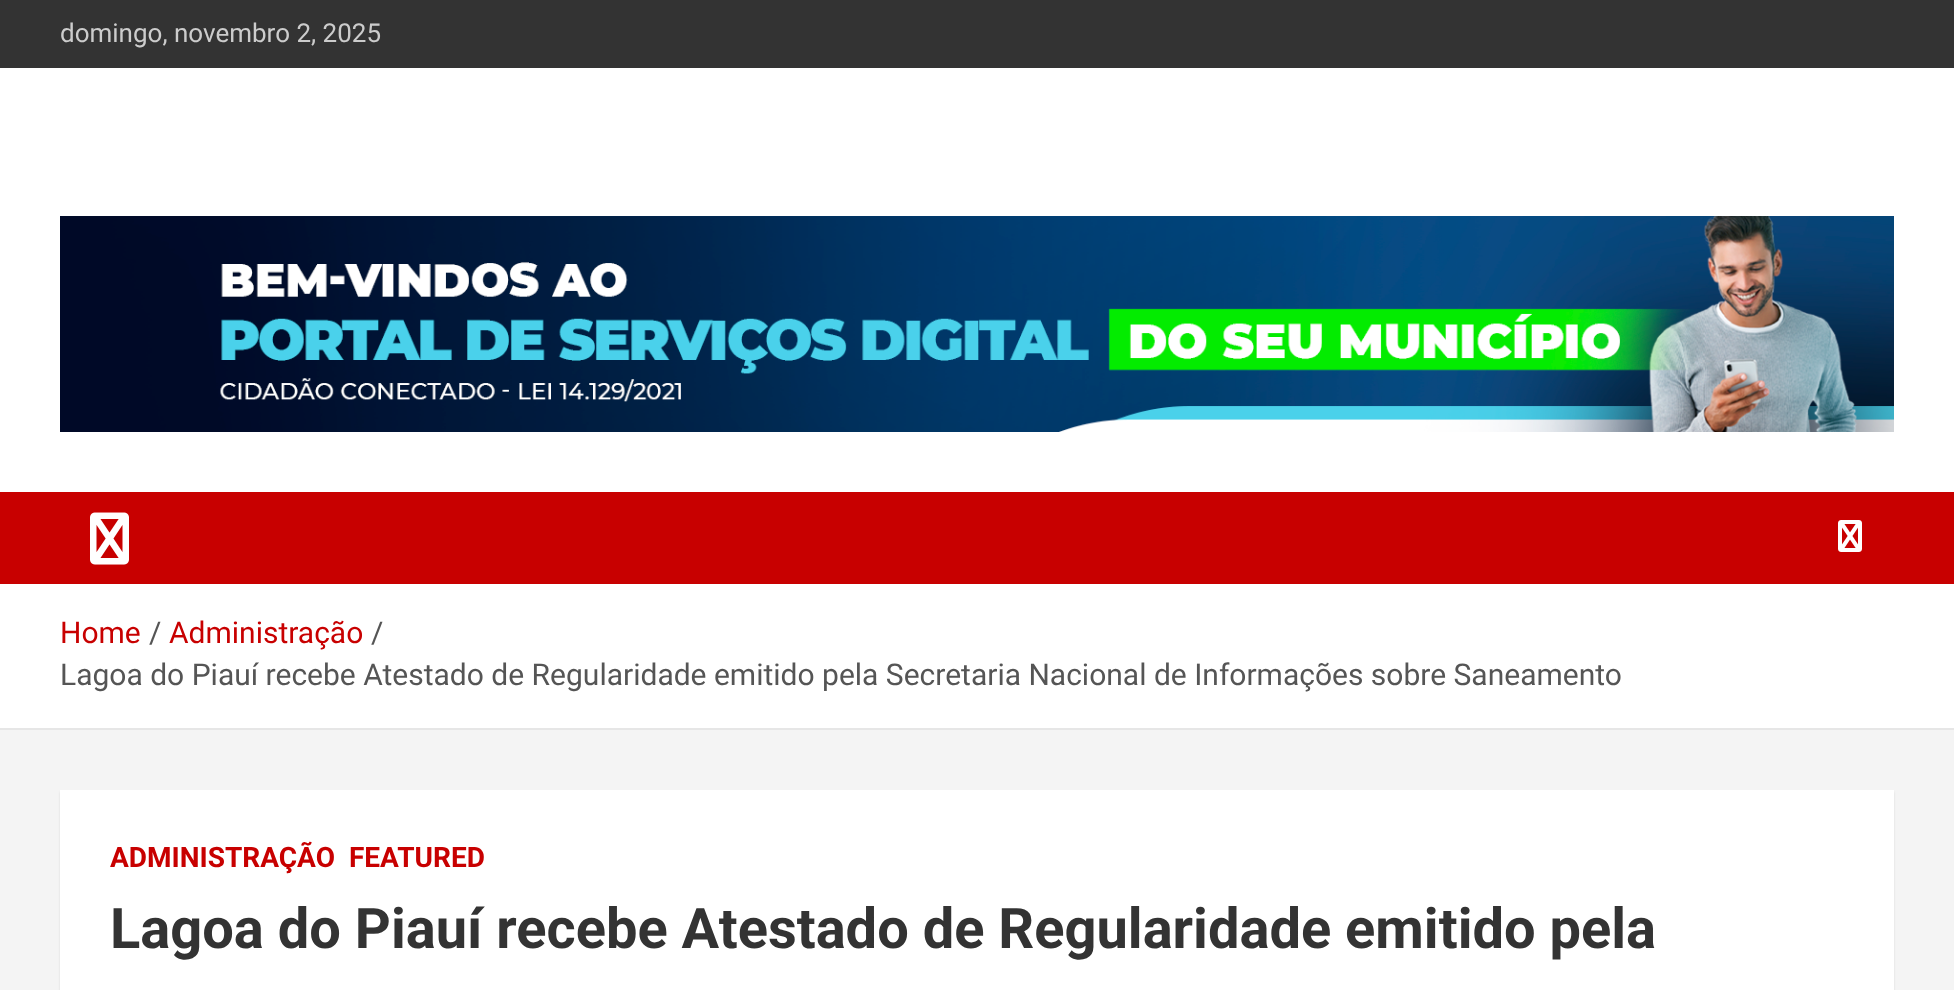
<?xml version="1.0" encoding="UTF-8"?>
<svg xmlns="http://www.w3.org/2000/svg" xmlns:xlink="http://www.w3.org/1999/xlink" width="1954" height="990">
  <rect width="100%" height="100%" fill="#f4f4f4" />
  <rect width="1954" height="68" fill="#333333" />
  <rect y="68" width="1954" height="424" fill="#ffffff" />
  <image x="60" y="216" width="1834" height="216" xlink:href="image1.png" />
  <rect y="492" width="1954" height="92" fill="#c80000" />
  <image x="90" y="512" width="39" height="53" xlink:href="image2.png" />
  <image x="1838" y="520" width="24" height="32" xlink:href="image3.png" />
  <rect y="584" width="1954" height="144" fill="#ffffff" />
  <rect y="728" width="1954" height="2" fill="#e6e6e6" />
  <rect x="60" y="792" width="1834" height="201" fill="#000000" fill-opacity="0.1" filter="blur(1px)" />
  <rect x="60" y="790" width="1834" height="200" fill="#ffffff" />
  <text x="60" y="42" style="font-family: Roboto; font-size: 26px; fill: #cccccc">domingo, novembro 2, 2025</text>
  <text x="60" y="643" style="font-family: Roboto; font-size: 30px; fill: #c80000">Home</text>
  <text x="149" y="643" style="font-family: Roboto; font-size: 30px; fill: #555555">/</text>
  <text x="169" y="643" style="font-family: Roboto; font-size: 30px; fill: #c80000">Administração</text>
  <text x="371" y="643" style="font-family: Roboto; font-size: 30px; fill: #555555">/</text>
  <text x="60" y="685" style="font-family: Roboto; font-size: 30px; fill: #555555">Lagoa do Piauí recebe Atestado de Regularidade emitido pela Secretaria Nacional de Informações sobre Saneamento</text>
  <text x="110" y="867" style="font-family: Roboto; font-size: 28px; font-weight: bold; fill: #c80000">ADMINISTRAÇÃO</text>
  <text x="349" y="867" style="font-family: Roboto; font-size: 28px; font-weight: bold; fill: #c80000">FEATURED</text>
  <text x="110" y="948" style="font-family: Roboto; font-size: 56px; font-weight: bold; fill: #333333">Lagoa do Piauí recebe Atestado de Regularidade emitido pela</text>
</svg>
